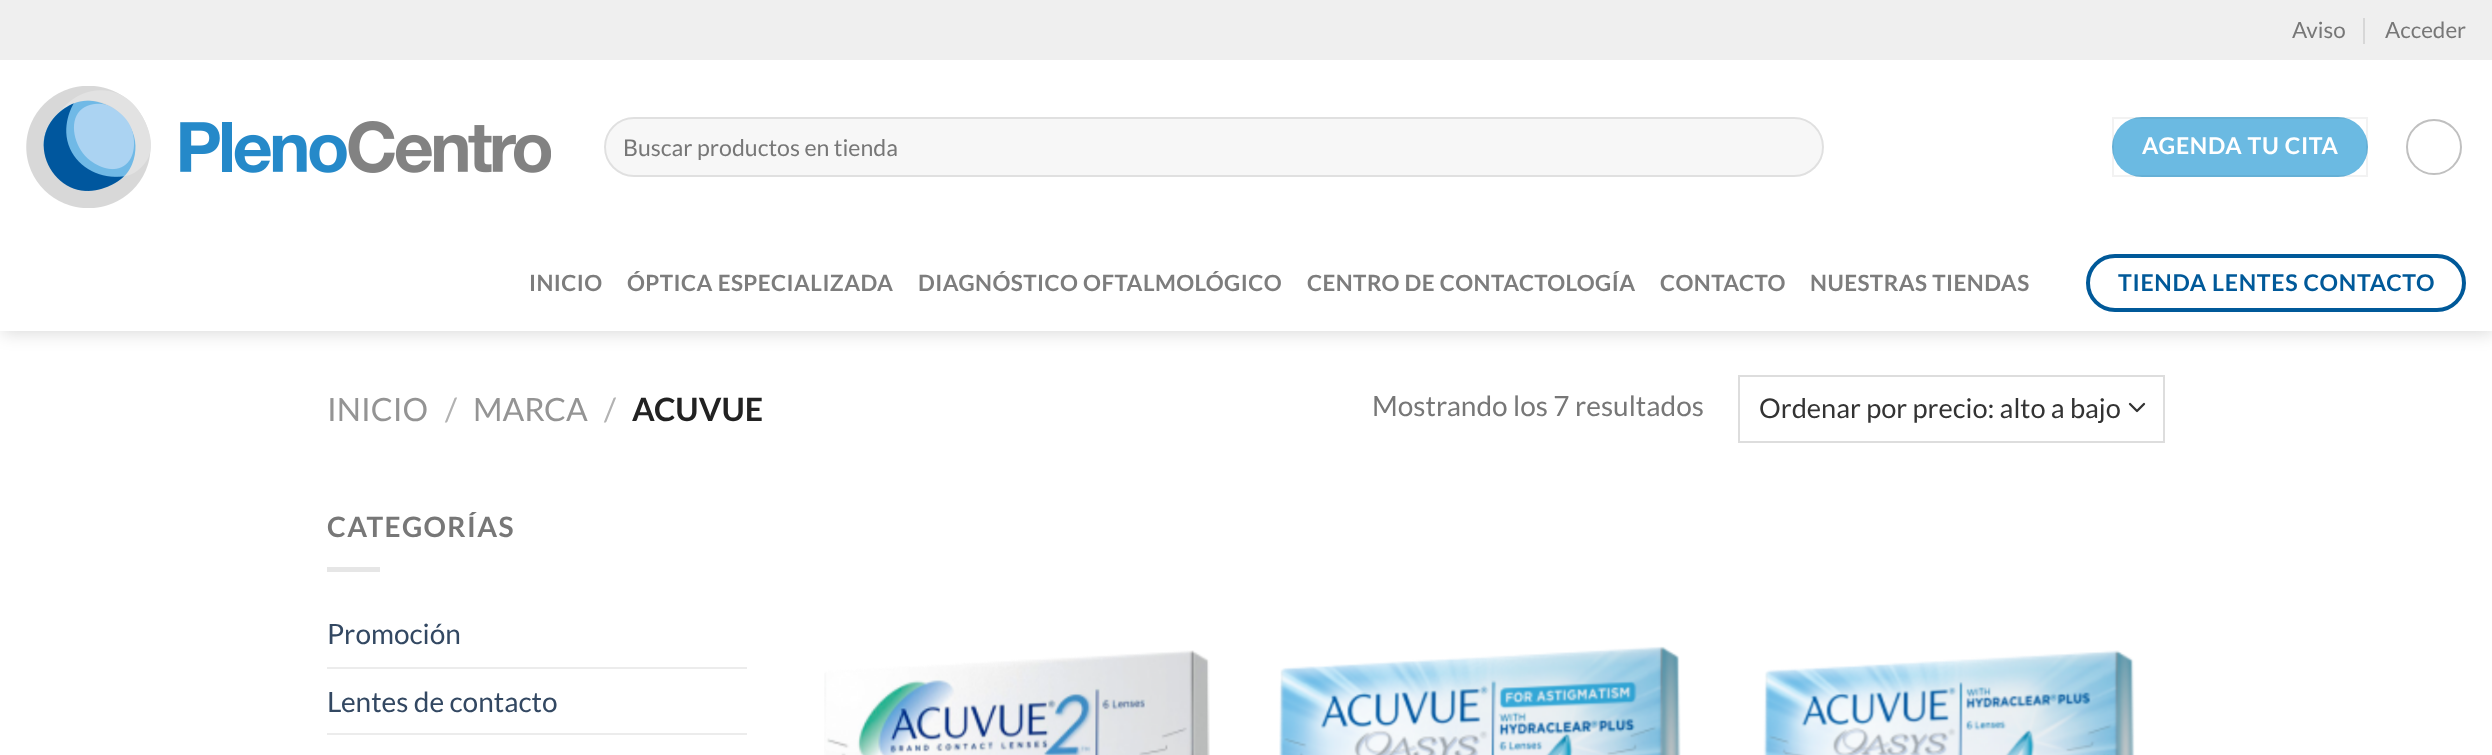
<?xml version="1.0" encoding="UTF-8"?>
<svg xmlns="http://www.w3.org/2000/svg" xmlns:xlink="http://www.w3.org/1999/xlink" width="2492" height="755">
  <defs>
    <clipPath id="clip1"><path d="M 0 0 h 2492 v 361 h -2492 z m 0 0 h 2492 v 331 h -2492 z" clip-rule="evenodd" /></clipPath>
  </defs>
  <rect width="100%" height="100%" fill="#ffffff" />
  <g clip-path="url(#clip1)">
    <rect x="2" y="2" width="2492" height="331" fill="#000000" fill-opacity="0.15" filter="blur(9px)" />
  </g>
  <rect width="2492" height="60" fill="#efefef" />
  <rect x="2363" y="18" width="2" height="26" fill="#d7d7d7" />
  <image x="26" y="86" width="525" height="122" xlink:href="image1.png" />
  <rect x="604" y="117" width="1220" height="60" rx="30" fill="#f7f7f7" />
  <rect x="605" y="118" width="1218" height="58" rx="29" fill="none" stroke="#000000" stroke-opacity="0.09" stroke-width="2" />
  <rect x="2112" y="117" width="256" height="60" rx="30" fill="#6bbae2" />
  <rect x="2113" y="118" width="254" height="58" fill="none" stroke="#000000" stroke-opacity="0.05" stroke-width="2" />
  <circle cx="2434" cy="147" r="27" fill="none" stroke="#c0c0c0" stroke-width="2" />
  <rect x="2088" y="256" width="376" height="54" rx="27" fill="none" stroke="#005999" stroke-width="4" />
  <rect x="2" y="330" width="2490" height="1" fill="#ffffff" fill-opacity="0.9" />
  <path d="M 2130 404 l 7 7 l 7 -7" fill="none" stroke="#333333" stroke-width="2.3" stroke-linecap="round" stroke-linejoin="round" />
  <rect x="1739" y="376" width="425" height="66" fill="none" stroke="#dddddd" stroke-width="2" />
  <rect x="327" y="567" width="53" height="5" fill="#e6e6e6" />
  <rect x="327" y="667" width="420" height="2" fill="#ececec" />
  <rect x="327" y="733" width="420" height="2" fill="#ececec" />
  <image x="824" y="650" width="386" height="105" xlink:href="image2.png" />
  <image x="1279" y="646" width="402" height="109" xlink:href="image3.png" />
  <image x="1763" y="650" width="372" height="105" xlink:href="image4.png" />
  <text x="2292" y="38" style="font-family: Lato; font-size: 22.4px; fill: #777777">Aviso</text>
  <text x="2385" y="38" style="font-family: Lato; font-size: 22.4px; fill: #777777">Acceder</text>
  <text x="623" y="156" style="font-family: Lato; font-size: 23.1px; fill: #777777">Buscar productos en tienda</text>
  <text x="2142" y="154" style="font-family: Lato; font-size: 23.1px; font-weight: bold; letter-spacing: 0.7px; fill: #ffffff">AGENDA TU CITA</text>
  <text x="529" y="291" style="font-family: Lato; font-size: 22.4px; font-weight: bold; letter-spacing: 0.45px; fill: #7d7d7d">INICIO</text>
  <text x="627" y="291" style="font-family: Lato; font-size: 22.4px; font-weight: bold; letter-spacing: 0.45px; fill: #7d7d7d">ÓPTICA ESPECIALIZADA</text>
  <text x="918" y="291" style="font-family: Lato; font-size: 22.4px; font-weight: bold; letter-spacing: 0.45px; fill: #7d7d7d">DIAGNÓSTICO OFTALMOLÓGICO</text>
  <text x="1307" y="291" style="font-family: Lato; font-size: 22.4px; font-weight: bold; letter-spacing: 0.45px; fill: #7d7d7d">CENTRO DE CONTACTOLOGÍA</text>
  <text x="1660" y="291" style="font-family: Lato; font-size: 22.4px; font-weight: bold; letter-spacing: 0.45px; fill: #7d7d7d">CONTACTO</text>
  <text x="1810" y="291" style="font-family: Lato; font-size: 22.4px; font-weight: bold; letter-spacing: 0.45px; fill: #7d7d7d">NUESTRAS TIENDAS</text>
  <text x="2118" y="291" style="font-family: Lato; font-size: 23.1px; font-weight: bold; letter-spacing: 0.7px; fill: #005999">TIENDA LENTES CONTACTO</text>
  <text x="327" y="421" style="font-family: Lato; font-size: 32px; fill: #949494">INICIO</text>
  <text x="445" y="421" style="font-family: Lato; font-size: 32px; fill: #b2b2b2">/</text>
  <text x="473" y="421" style="font-family: Lato; font-size: 32px; fill: #949494">MARCA</text>
  <text x="604" y="421" style="font-family: Lato; font-size: 32px; fill: #b2b2b2">/</text>
  <text x="632" y="421" style="font-family: Lato; font-size: 32px; font-weight: bold; fill: #222222">ACUVUE</text>
  <text x="1372" y="416" style="font-family: Lato; font-size: 28px; fill: #777777">Mostrando los 7 resultados</text>
  <text x="1759" y="418" style="font-family: Lato; font-size: 27.2px; fill: #333333">Ordenar por precio: alto a bajo</text>
  <text x="327" y="537" style="font-family: Lato; font-size: 28px; font-weight: bold; letter-spacing: 1.4px; fill: #777777">CATEGORÍAS</text>
  <text x="327" y="644" style="font-family: Lato; font-size: 28px; fill: #334862">Promoción</text>
  <text x="327" y="712" style="font-family: Lato; font-size: 28px; fill: #334862">Lentes de contacto</text>
</svg>
